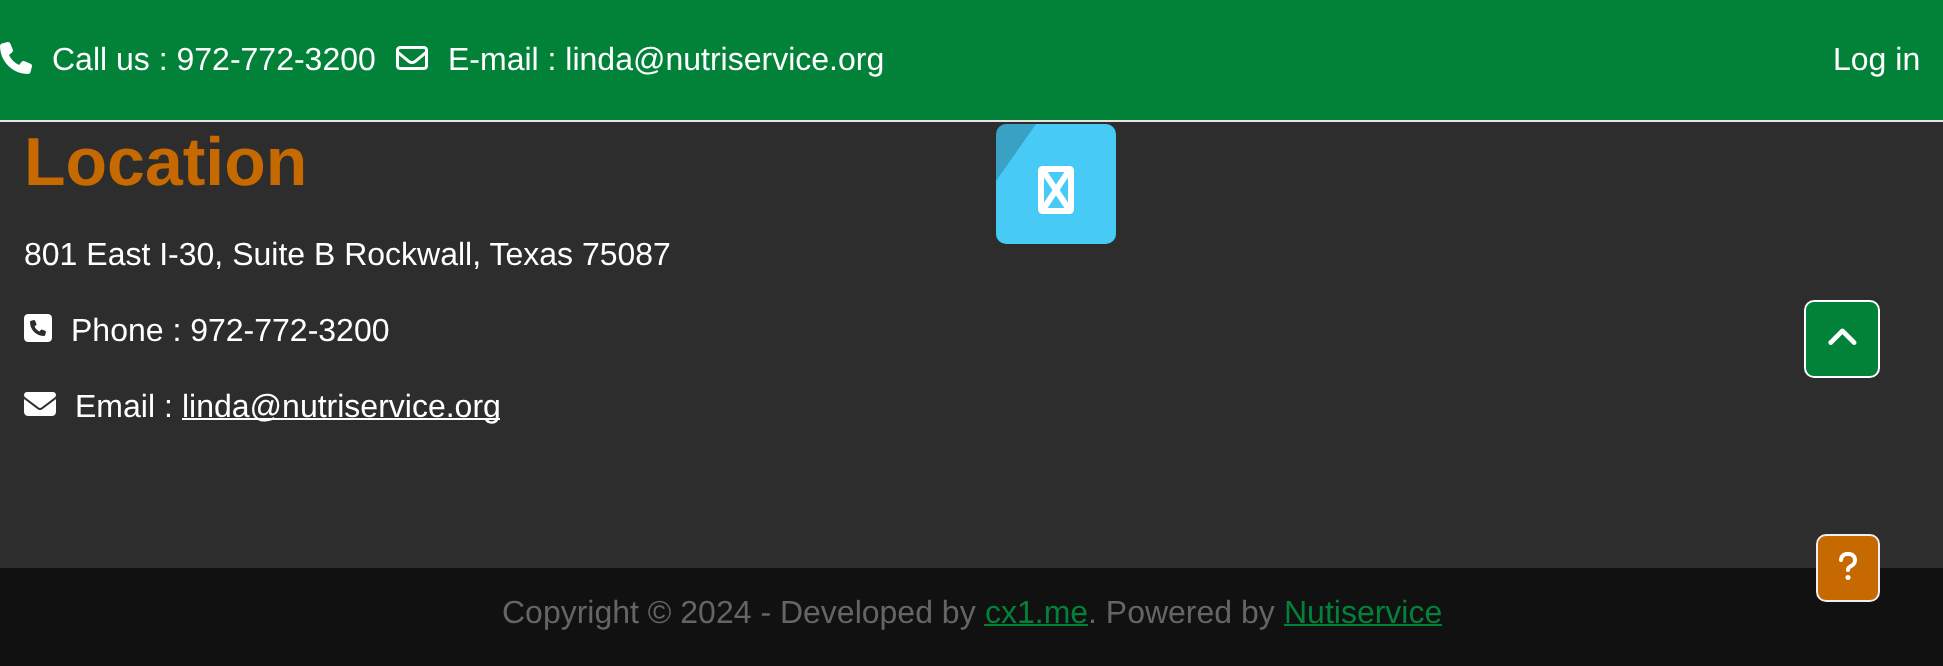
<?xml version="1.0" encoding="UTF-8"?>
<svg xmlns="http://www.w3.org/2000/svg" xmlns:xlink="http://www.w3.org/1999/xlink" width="1943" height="666">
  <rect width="100%" height="100%" fill="#111111" />
  <rect width="1943" height="120" fill="#028239" />
  <rect y="120" width="1943" height="2" fill="#e8e3e3" />
  <image x="0" y="42" width="32" height="32" xlink:href="image1.png" />
  <image x="396" y="46" width="32" height="24" xlink:href="image2.png" />
  <rect y="122" width="1943" height="446" fill="#2d2d2d" />
  <image x="24" y="314" width="28" height="28" xlink:href="image3.png" />
  <image x="24" y="392" width="32" height="24" xlink:href="image4.png" />
  <rect x="182" y="418" width="318" height="2" fill="#ffffff" />
  <rect x="996" y="124" width="120" height="120" rx="10" fill="#47caf6" />
  <image x="1038" y="166" width="36" height="48" xlink:href="image5.png" />
  <path d="M 1006 124 h 30 l -40 57 v -47 c 0 -6 4 -10 10 -10 z" fill="#000000" fill-opacity="0.2" />
  <rect x="1817" y="535" width="62" height="66" rx="9" fill="#c66900" stroke="#eeeeee" stroke-width="2" />
  <image x="1839" y="552" width="18" height="28" xlink:href="image6.png" />
  <rect x="984" y="624" width="104" height="2" fill="#028239" />
  <rect x="1284" y="624" width="158" height="2" fill="#028239" />
  <rect x="1805" y="301" width="74" height="76" rx="9" fill="#028239" stroke="#ffffff" stroke-width="2" />
  <image x="1828" y="328" width="29" height="17" xlink:href="image7.png" />
  <text x="52" y="70" style="font-family: Liberation Sans; font-size: 32px; fill: #ffffff">Call us : 972-772-3200</text>
  <text x="448" y="70" style="font-family: Liberation Sans; font-size: 32px; fill: #ffffff">E-mail : linda@nutriservice.org</text>
  <text x="1833" y="70" style="font-family: Liberation Sans; font-size: 32px; fill: #ffffff">Log in</text>
  <text x="24" y="185" style="font-family: Liberation Sans; font-size: 68px; font-weight: bold; fill: #c66900">Location</text>
  <text x="24" y="265" style="font-family: Liberation Sans; font-size: 32px; fill: #ffffff">801 East I-30, Suite B Rockwall, Texas 75087</text>
  <text x="71" y="341" style="font-family: Liberation Sans; font-size: 32px; fill: #ffffff">Phone : 972-772-3200</text>
  <text x="75" y="417" style="font-family: Liberation Sans; font-size: 32px; fill: #ffffff">Email :</text>
  <text x="182" y="417" style="font-family: Liberation Sans; font-size: 32px; fill: #ffffff">linda@nutriservice.org</text>
  <text x="502" y="623" style="font-family: Liberation Sans; font-size: 32px; fill: #656565">Copyright © 2024 - Developed by</text>
  <text x="985" y="623" style="font-family: Liberation Sans; font-size: 32px; fill: #028239">cx1.me</text>
  <text x="1088" y="623" style="font-family: Liberation Sans; font-size: 32px; fill: #656565">. Powered by</text>
  <text x="1284" y="623" style="font-family: Liberation Sans; font-size: 32px; fill: #028239">Nutiservice</text>
</svg>
